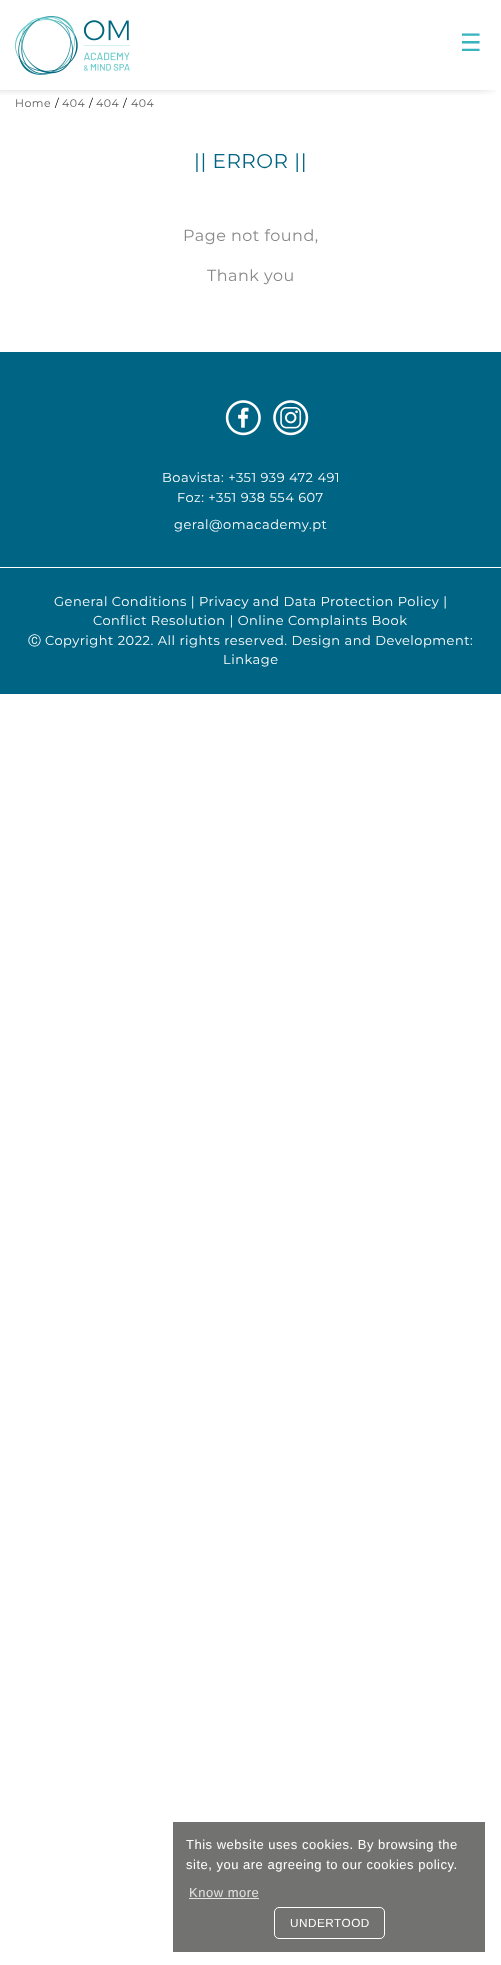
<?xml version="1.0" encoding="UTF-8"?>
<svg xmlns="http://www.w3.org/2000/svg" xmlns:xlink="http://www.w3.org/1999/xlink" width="501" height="1965">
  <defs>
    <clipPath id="clip1"><rect x="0" y="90" width="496" height="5" /></clipPath>
  </defs>
  <rect width="100%" height="100%" fill="#ffffff" />
  <g clip-path="url(#clip1)">
    <rect x="-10" y="-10" width="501" height="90" fill="#000000" filter="blur(7.5px)" />
  </g>
  <image x="15" y="16" width="115" height="59" xlink:href="image1.png" />
  <rect y="352" width="501" height="342" fill="#006484" />
  <image x="225" y="400" width="36" height="36" xlink:href="image2.png" />
  <image x="273" y="400" width="36" height="36" xlink:href="image3.png" />
  <rect y="567" width="501" height="1" fill="#ffffff" />
  <rect x="173" y="1822" width="312" height="130" fill="#727271" />
  <rect x="189" y="1898" width="70" height="1" fill="#e3e3e3" />
  <rect x="274.5" y="1907.5" width="110" height="31" rx="4.5" fill="none" stroke="#ffffff" />
  <text x="460" y="51" style="font-family: DejaVu Sans; font-size: 24px; letter-spacing: 0.5px; fill: #38b4be">☰</text>
  <text x="15" y="107" style="font-family: Montserrat; font-size: 11px; letter-spacing: 0.5px; fill: #5b5b5b">Home</text>
  <text x="55" y="107" style="font-family: Montserrat; font-size: 11px; letter-spacing: 0.5px; fill: #000000">/</text>
  <text x="62" y="107" style="font-family: Montserrat; font-size: 11px; letter-spacing: 0.5px; fill: #5b5b5b">404</text>
  <text x="89" y="107" style="font-family: Montserrat; font-size: 11px; letter-spacing: 0.5px; fill: #000000">/</text>
  <text x="96" y="107" style="font-family: Montserrat; font-size: 11px; letter-spacing: 0.5px; fill: #5b5b5b">404</text>
  <text x="123" y="107" style="font-family: Montserrat; font-size: 11px; letter-spacing: 0.5px; fill: #000000">/</text>
  <text x="131" y="107" style="font-family: Montserrat; font-size: 11px; letter-spacing: 0.5px; fill: #5b5b5b">404</text>
  <text x="194" y="168" style="font-family: Montserrat; font-size: 20px; letter-spacing: 0.5px; fill: #006484">|| ERROR ||</text>
  <text x="183" y="241" style="font-family: Montserrat; font-size: 16px; letter-spacing: 0.5px; fill: #898989">Page not found,</text>
  <text x="207" y="281" style="font-family: Montserrat; font-size: 16px; letter-spacing: 0.5px; fill: #898989">Thank you</text>
  <text x="162" y="482" style="font-family: Montserrat; font-size: 13px; letter-spacing: 0.5px; fill: #ffffff">Boavista: +351 939 472 491</text>
  <text x="177" y="502" style="font-family: Montserrat; font-size: 13px; letter-spacing: 0.5px; fill: #ffffff">Foz: +351 938 554 607</text>
  <text x="174" y="529" style="font-family: Montserrat; font-size: 13px; letter-spacing: 0.5px; fill: #ffffff">geral@omacademy.pt</text>
  <text x="54" y="606" style="font-family: Montserrat; font-size: 13px; letter-spacing: 0.5px; fill: #ffffff">General Conditions | Privacy and Data Protection Policy |</text>
  <text x="93" y="625" style="font-family: Montserrat; font-size: 13px; letter-spacing: 0.5px; fill: #ffffff">Conflict Resolution | Online Complaints Book</text>
  <text x="28" y="645" style="font-family: WenQuanYi Zen Hei; font-size: 13px; font-weight: 500; letter-spacing: 0.5px; fill: #ffffff">Ⓒ</text>
  <text x="45" y="645" style="font-family: Montserrat; font-size: 13px; letter-spacing: 0.5px; fill: #ffffff">Copyright 2022. All rights reserved. Design and Development:</text>
  <text x="223" y="664" style="font-family: Montserrat; font-size: 13px; letter-spacing: 0.5px; fill: #ffffff">Linkage</text>
  <text x="186" y="1849" style="font-family: Liberation Sans; font-size: 13px; letter-spacing: 0.5px; fill: #ffffff">This website uses cookies. By browsing the</text>
  <text x="186" y="1869" style="font-family: Liberation Sans; font-size: 13px; letter-spacing: 0.5px; fill: #ffffff">site, you are agreeing to our cookies policy.</text>
  <text x="189" y="1897" style="font-family: Liberation Sans; font-size: 13px; letter-spacing: 0.5px; fill: #e3e3e3">Know more</text>
  <text x="290" y="1927" style="font-family: Liberation Sans; font-size: 11.75px; letter-spacing: 0.5px; fill: #ffffff">UNDERTOOD</text>
</svg>
